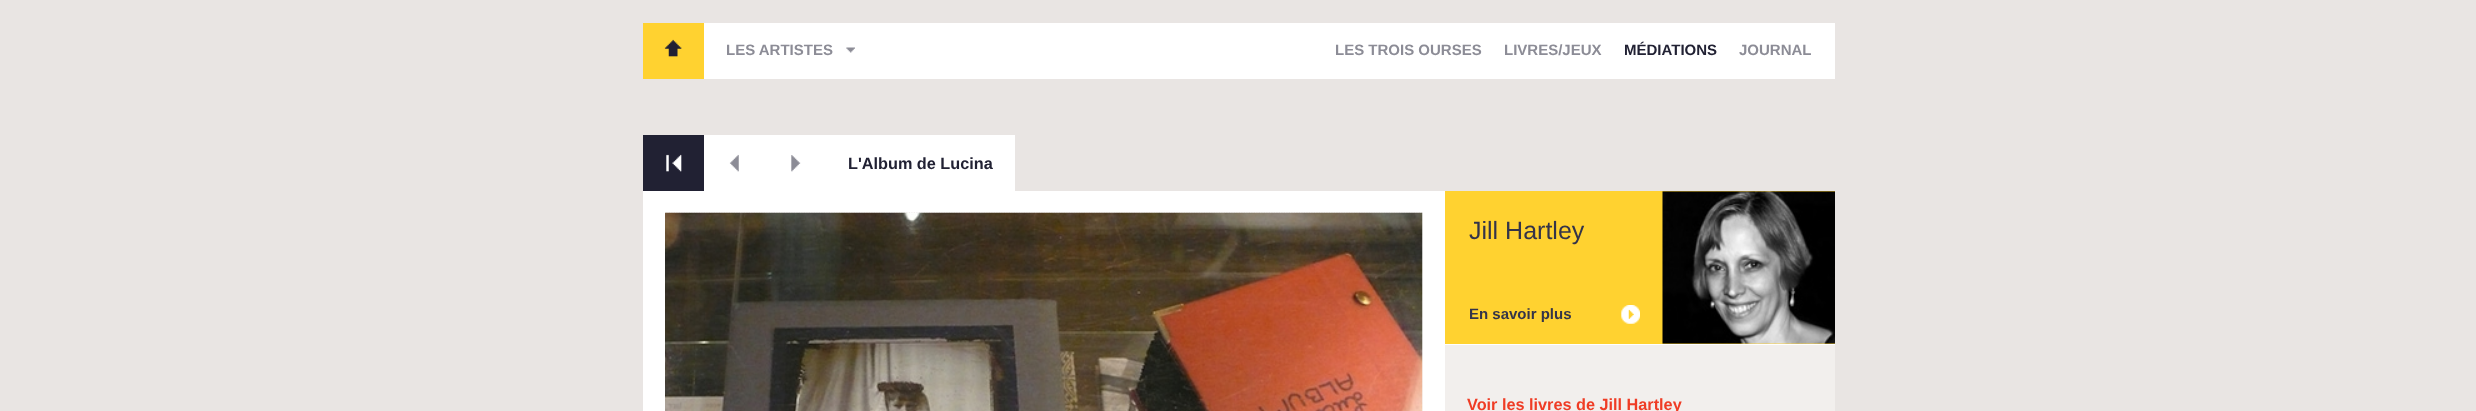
<?xml version="1.0" encoding="UTF-8"?>
<svg xmlns="http://www.w3.org/2000/svg" xmlns:xlink="http://www.w3.org/1999/xlink" width="2476" height="411">
  <rect width="100%" height="100%" fill="#e9e5e3" />
  <rect x="643" y="191" width="802" height="220" fill="#ffffff" />
  <rect x="704" y="23" width="1131" height="56" fill="#ffffff" />
  <rect x="643" y="23" width="61" height="56" fill="#ffd230" />
  <image x="664" y="39" width="18" height="18" xlink:href="image1.png" />
  <image x="846" y="47" width="9" height="6" xlink:href="image2.png" />
  <rect x="643" y="135" width="61" height="56" fill="#212133" />
  <image x="666" y="154" width="16" height="18" xlink:href="image3.png" />
  <rect x="704" y="135" width="122" height="56" fill="#ffffff" />
  <image x="729" y="154" width="10" height="18" xlink:href="image4.png" />
  <image x="791" y="155" width="10" height="17" xlink:href="image5.png" />
  <rect x="826" y="135" width="189" height="56" fill="#ffffff" />
  <rect x="1445" y="345" width="390" height="66" fill="#f2efed" />
  <image x="665" y="212" width="758" height="1" xlink:href="image6.png" />
  <image x="665" y="212" width="758" height="199" xlink:href="image7.png" />
  <image x="665" y="212" width="758" height="199" xlink:href="image8.png" />
  <rect x="1445" y="191" width="390" height="153" fill="#ffd230" />
  <rect x="1445" y="344" width="390" height="1" fill="#ffffff" />
  <image x="1662" y="191" width="173" height="153" xlink:href="image9.png" />
  <image x="1621" y="305" width="19" height="19" xlink:href="image10.png" />
  <text x="726" y="55" style="font-family: Liberation Sans; font-size: 15px; font-weight: bold; fill: #8c8c96">LES ARTISTES</text>
  <text x="1335" y="55" style="font-family: Liberation Sans; font-size: 15px; font-weight: bold; fill: #8c8c96">LES TROIS OURSES</text>
  <text x="1504" y="55" style="font-family: Liberation Sans; font-size: 15px; font-weight: bold; fill: #8c8c96">LIVRES/JEUX</text>
  <text x="1624" y="55" style="font-family: Liberation Sans; font-size: 15px; font-weight: bold; fill: #212133">MÉDIATIONS</text>
  <text x="1739" y="55" style="font-family: Liberation Sans; font-size: 15px; font-weight: bold; fill: #8c8c96">JOURNAL</text>
  <text x="848" y="169" style="font-family: Liberation Sans; font-size: 16.25px; font-weight: bold; fill: #212133">L'Album de Lucina</text>
  <text x="1469" y="239" style="font-family: Liberation Sans; font-size: 25px; fill: #343449">Jill Hartley</text>
  <text x="1469" y="319" style="font-family: Liberation Sans; font-size: 15px; font-weight: bold; fill: #343449">En savoir plus</text>
  <text x="1467" y="410" style="font-family: Liberation Sans; font-size: 16.25px; font-weight: bold; fill: #ef3c25">Voir les livres de Jill Hartley</text>
</svg>
